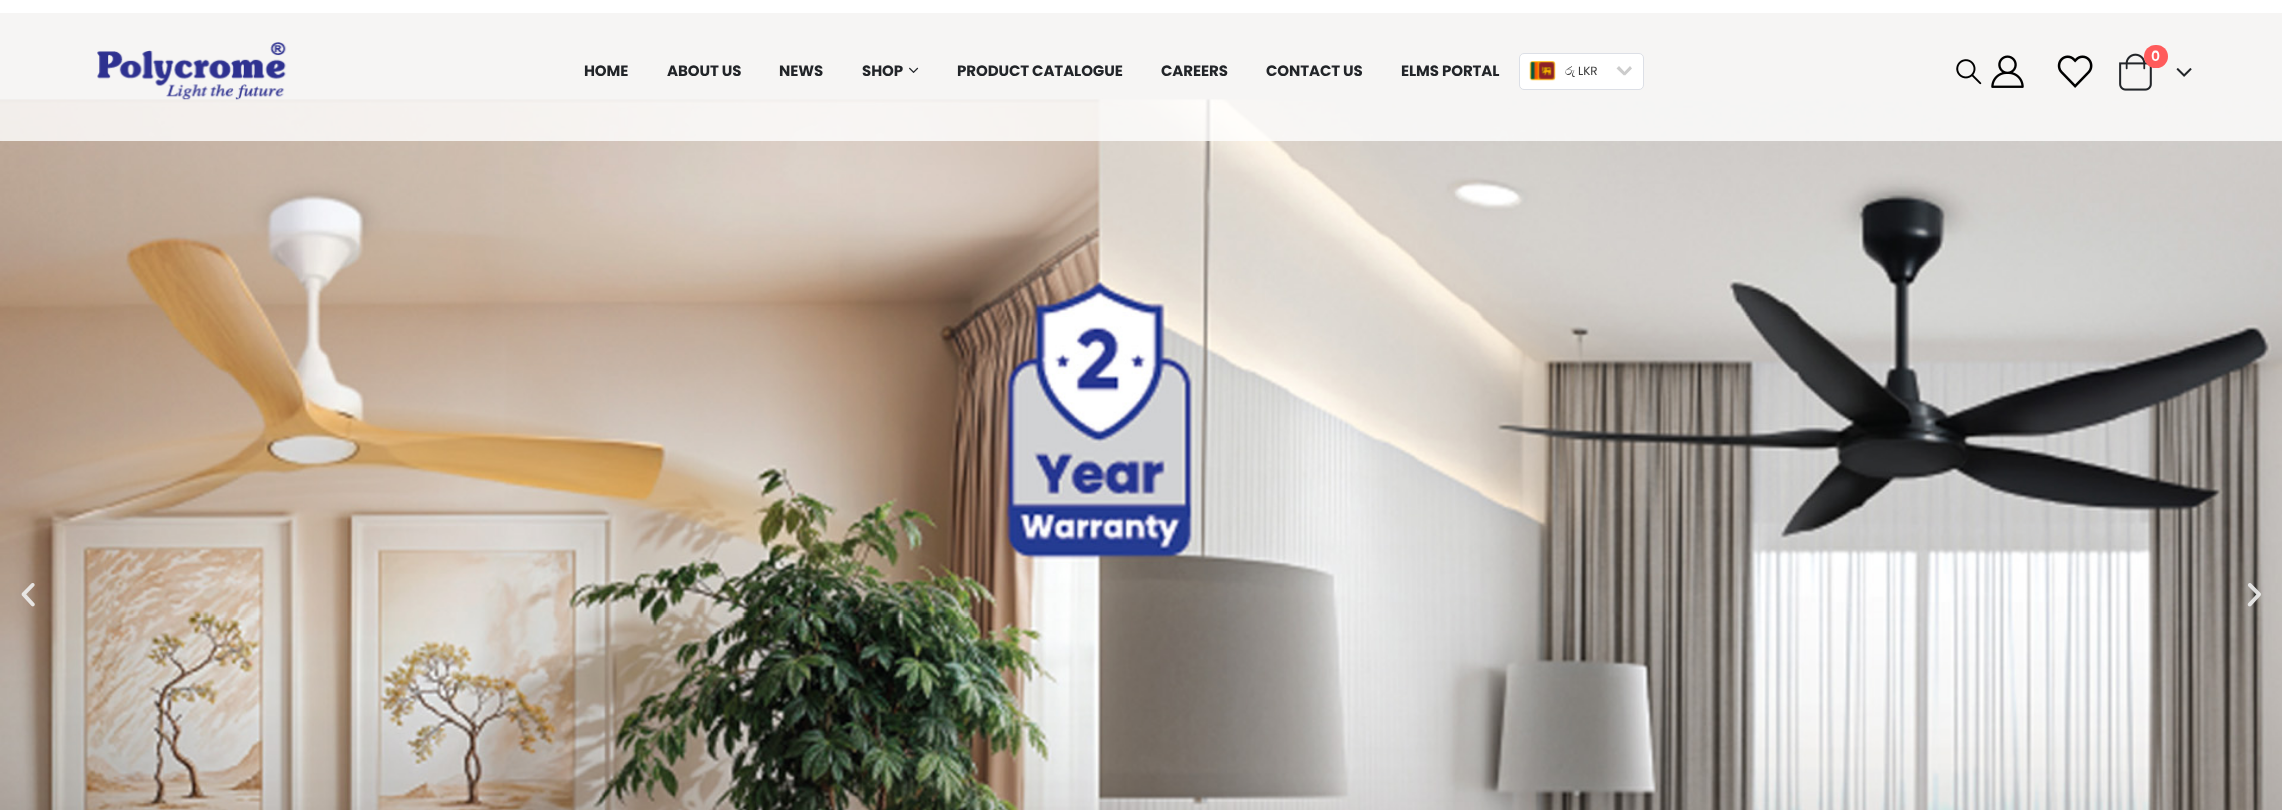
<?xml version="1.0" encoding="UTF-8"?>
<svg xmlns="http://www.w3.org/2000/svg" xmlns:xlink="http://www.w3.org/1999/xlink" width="2282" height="810">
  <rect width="100%" height="100%" fill="#ffffff" />
  <image x="0" y="13" width="2282" height="797" xlink:href="image1.png" />
  <image x="21" y="583" width="14" height="24" xlink:href="image2.png" />
  <image x="2247" y="583" width="14" height="24" xlink:href="image3.png" />
  <rect y="13" width="2282" height="128" fill="#ffffff" fill-opacity="0.8" />
  <image x="97" y="42" width="190" height="58" xlink:href="image4.png" />
  <image x="1956" y="59" width="26" height="26" xlink:href="image5.png" />
  <image x="1991" y="55" width="33" height="33" xlink:href="image6.png" />
  <image x="2057" y="55" width="36" height="33" xlink:href="image7.png" />
  <image x="2119" y="53" width="33" height="38" xlink:href="image8.png" />
  <rect x="2144" y="45" width="24" height="23" rx="11.5" fill="#ff5b5b" />
  <image x="2176" y="68" width="16" height="9" xlink:href="image9.png" />
  <image x="909" y="67" width="10" height="6" xlink:href="image10.png" />
  <rect x="1519.5" y="53.5" width="124" height="36" rx="4.5" fill="#ffffff" stroke="#dcdfe6" />
  <image x="1529" y="61" width="27" height="20" xlink:href="image11.png" />
  <path d="M 1616.5 68.5 l 2.5 -2.5 l 7 7.5 l -2 2 z" fill="#cccccc" />
  <path d="M 1630 66 l 2 2.5 l -7 7 l -2 -2 z" fill="#cccccc" />
  <text x="2151" y="61" style="font-family: Poppins; font-size: 14px; font-weight: 600; fill: #ffffff">0</text>
  <text x="584" y="76" style="font-family: Poppins; font-size: 15px; font-weight: bold; letter-spacing: -0.1px; fill: #222529">HOME</text>
  <text x="667" y="76" style="font-family: Poppins; font-size: 15px; font-weight: bold; letter-spacing: -0.1px; fill: #222529">ABOUT US</text>
  <text x="779" y="76" style="font-family: Poppins; font-size: 15px; font-weight: bold; letter-spacing: -0.1px; fill: #222529">NEWS</text>
  <text x="862" y="76" style="font-family: Poppins; font-size: 15px; font-weight: bold; letter-spacing: -0.1px; fill: #222529">SHOP</text>
  <text x="957" y="76" style="font-family: Poppins; font-size: 15px; font-weight: bold; letter-spacing: -0.1px; fill: #222529">PRODUCT CATALOGUE</text>
  <text x="1161" y="76" style="font-family: Poppins; font-size: 15px; font-weight: bold; letter-spacing: -0.1px; fill: #222529">CAREERS</text>
  <text x="1266" y="76" style="font-family: Poppins; font-size: 15px; font-weight: bold; letter-spacing: -0.1px; fill: #222529">CONTACT US</text>
  <text x="1401" y="76" style="font-family: Poppins; font-size: 15px; font-weight: bold; letter-spacing: -0.1px; fill: #222529">ELMS PORTAL</text>
  <text x="1565" y="75" style="font-family: FreeSerif; font-size: 12px; fill: #3b3b3b">රු</text>
  <text x="1578" y="75" style="font-family: Poppins; font-size: 12px; fill: #3b3b3b">LKR</text>
</svg>
